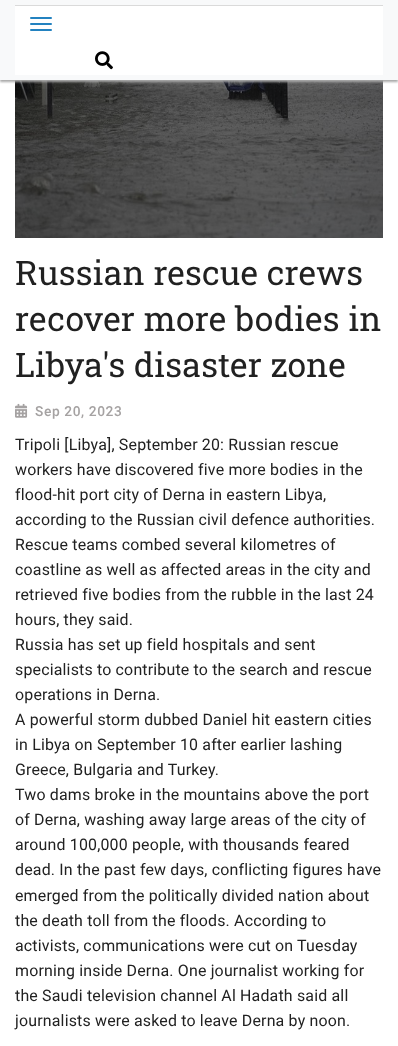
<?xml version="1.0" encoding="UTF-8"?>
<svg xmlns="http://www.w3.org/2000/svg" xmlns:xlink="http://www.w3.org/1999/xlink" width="398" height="1046">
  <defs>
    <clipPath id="clip1"><rect x="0" y="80" width="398" height="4" /></clipPath>
  </defs>
  <rect width="100%" height="100%" fill="#ffffff" />
  <rect width="398" height="80" fill="#f8f9fa" />
  <image x="15" y="80" width="368" height="158" xlink:href="image2.png" />
  <g clip-path="url(#clip1)">
    <rect y="2" width="398" height="80" fill="#a9a9a9" filter="blur(1px)" />
  </g>
  <rect x="15" y="6" width="368" height="69" fill="#ffffff" />
  <rect x="15" y="5" width="368" height="1" fill="#dadada" />
  <rect x="30" y="17" width="22" height="2" rx="1" fill="#2382c0" />
  <rect x="30" y="23" width="22" height="2" rx="1" fill="#2382c0" />
  <rect x="30" y="29" width="22" height="2" rx="1" fill="#2382c0" />
  <image x="95" y="51" width="18" height="19" xlink:href="image1.png" />
  <image x="15" y="403" width="13" height="15" xlink:href="image3.png" />
  <text x="15" y="285" style="font-family: Roboto Slab; font-size: 33.75px; letter-spacing: 0.18px; fill: #212121">Russian rescue crews</text>
  <text x="15" y="331" style="font-family: Roboto Slab; font-size: 33.75px; letter-spacing: 0.18px; fill: #212121">recover more bodies in</text>
  <text x="15" y="377" style="font-family: Roboto Slab; font-size: 33.75px; letter-spacing: 0.18px; fill: #212121">Libya's disaster zone</text>
  <text x="35" y="416" style="font-family: Roboto; font-size: 13.75px; font-weight: 500; letter-spacing: 0.6px; fill: #a5a2a2">Sep 20, 2023</text>
  <text x="15" y="450" style="font-family: Roboto; font-size: 15.95px; letter-spacing: 0.18px; fill: #212121">Tripoli [Libya], September 20: Russian rescue</text>
  <text x="15" y="475" style="font-family: Roboto; font-size: 15.95px; letter-spacing: 0.18px; fill: #212121">workers have discovered five more bodies in the</text>
  <text x="15" y="500" style="font-family: Roboto; font-size: 15.95px; letter-spacing: 0.18px; fill: #212121">flood-hit port city of Derna in eastern Libya,</text>
  <text x="15" y="525" style="font-family: Roboto; font-size: 15.95px; letter-spacing: 0.18px; fill: #212121">according to the Russian civil defence authorities.</text>
  <text x="15" y="550" style="font-family: Roboto; font-size: 15.95px; letter-spacing: 0.18px; fill: #212121">Rescue teams combed several kilometres of</text>
  <text x="15" y="575" style="font-family: Roboto; font-size: 15.95px; letter-spacing: 0.18px; fill: #212121">coastline as well as affected areas in the city and</text>
  <text x="15" y="600" style="font-family: Roboto; font-size: 15.95px; letter-spacing: 0.18px; fill: #212121">retrieved five bodies from the rubble in the last 24</text>
  <text x="15" y="625" style="font-family: Roboto; font-size: 15.95px; letter-spacing: 0.18px; fill: #212121">hours, they said.</text>
  <text x="15" y="650" style="font-family: Roboto; font-size: 15.95px; letter-spacing: 0.18px; fill: #212121">Russia has set up field hospitals and sent</text>
  <text x="15" y="675" style="font-family: Roboto; font-size: 15.95px; letter-spacing: 0.18px; fill: #212121">specialists to contribute to the search and rescue</text>
  <text x="15" y="700" style="font-family: Roboto; font-size: 15.95px; letter-spacing: 0.18px; fill: #212121">operations in Derna.</text>
  <text x="15" y="725" style="font-family: Roboto; font-size: 15.95px; letter-spacing: 0.18px; fill: #212121">A powerful storm dubbed Daniel hit eastern cities</text>
  <text x="15" y="750" style="font-family: Roboto; font-size: 15.95px; letter-spacing: 0.18px; fill: #212121">in Libya on September 10 after earlier lashing</text>
  <text x="15" y="775" style="font-family: Roboto; font-size: 15.95px; letter-spacing: 0.18px; fill: #212121">Greece, Bulgaria and Turkey.</text>
  <text x="15" y="800" style="font-family: Roboto; font-size: 15.95px; letter-spacing: 0.18px; fill: #212121">Two dams broke in the mountains above the port</text>
  <text x="15" y="825" style="font-family: Roboto; font-size: 15.95px; letter-spacing: 0.18px; fill: #212121">of Derna, washing away large areas of the city of</text>
  <text x="15" y="850" style="font-family: Roboto; font-size: 15.95px; letter-spacing: 0.18px; fill: #212121">around 100,000 people, with thousands feared</text>
  <text x="15" y="875" style="font-family: Roboto; font-size: 15.95px; letter-spacing: 0.18px; fill: #212121">dead. In the past few days, conflicting figures have</text>
  <text x="15" y="901" style="font-family: Roboto; font-size: 15.95px; letter-spacing: 0.18px; fill: #212121">emerged from the politically divided nation about</text>
  <text x="15" y="926" style="font-family: Roboto; font-size: 15.95px; letter-spacing: 0.18px; fill: #212121">the death toll from the floods. According to</text>
  <text x="15" y="951" style="font-family: Roboto; font-size: 15.95px; letter-spacing: 0.18px; fill: #212121">activists, communications were cut on Tuesday</text>
  <text x="15" y="976" style="font-family: Roboto; font-size: 15.95px; letter-spacing: 0.18px; fill: #212121">morning inside Derna. One journalist working for</text>
  <text x="15" y="1001" style="font-family: Roboto; font-size: 15.95px; letter-spacing: 0.18px; fill: #212121">the Saudi television channel Al Hadath said all</text>
  <text x="15" y="1026" style="font-family: Roboto; font-size: 15.95px; letter-spacing: 0.18px; fill: #212121">journalists were asked to leave Derna by noon.</text>
</svg>
